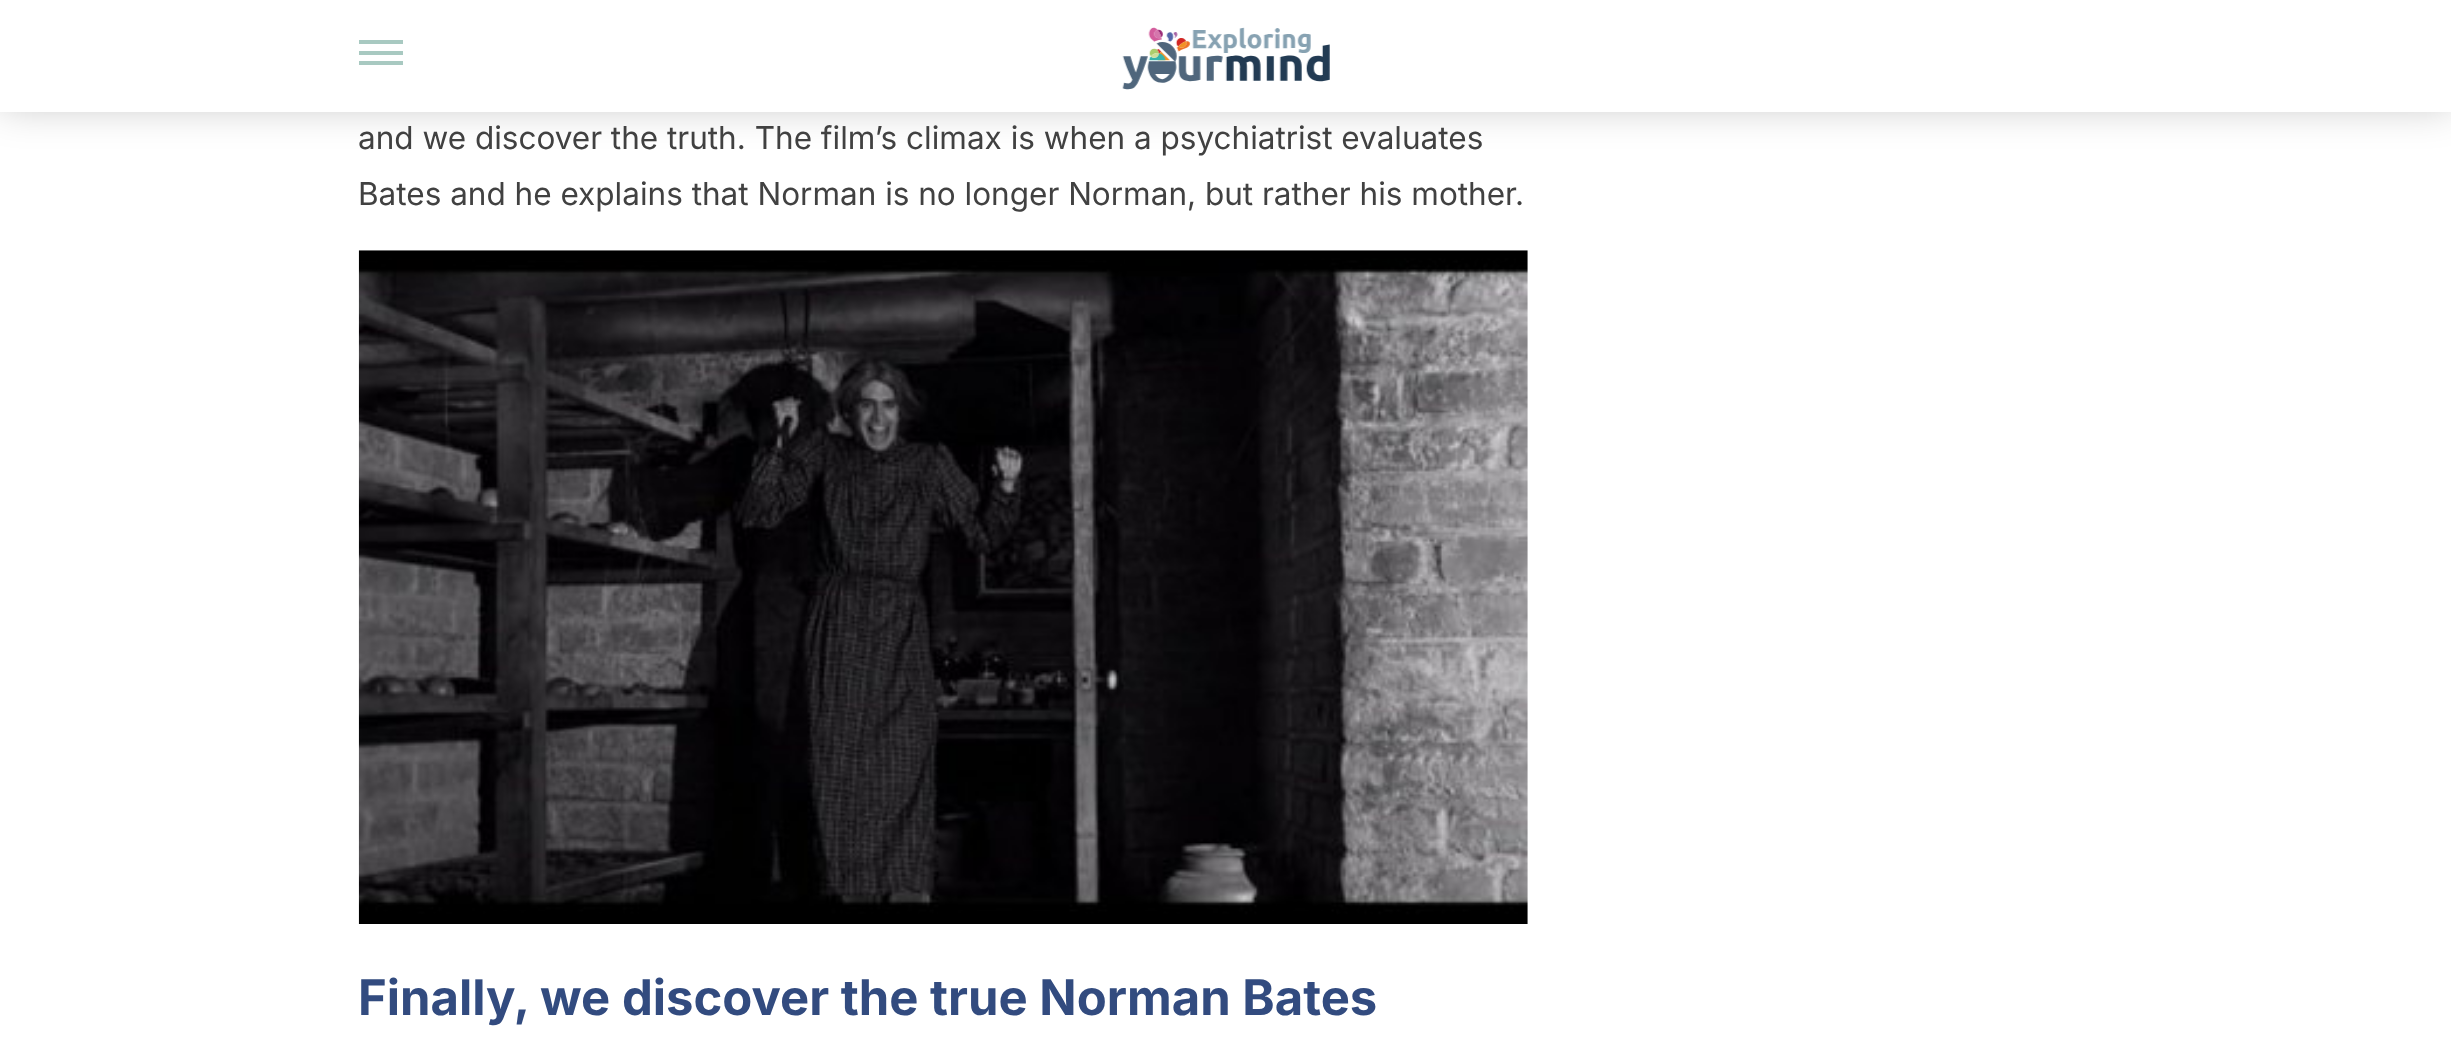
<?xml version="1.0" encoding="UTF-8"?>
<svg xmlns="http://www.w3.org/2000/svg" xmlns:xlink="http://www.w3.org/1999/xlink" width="2451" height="1039">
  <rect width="100%" height="100%" fill="#ffffff" />
  <rect y="-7" width="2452" height="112" fill="#000000" fill-opacity="0.25" filter="blur(21px)" />
  <rect width="2451" height="112" fill="#ffffff" />
  <rect x="359" y="40" width="44" height="4" fill="#a8c9c1" />
  <rect x="359" y="51" width="44" height="4" fill="#a8c9c1" />
  <rect x="359" y="61" width="44" height="4" fill="#a8c9c1" />
  <image x="1122" y="27" width="208" height="63" xlink:href="image1.png" />
  <image x="358" y="250" width="1170" height="674" xlink:href="image2.png" />
  <text x="358" y="149" style="font-family: Inter; font-size: 31.5px; fill: #414141">and we discover the truth. The film’s climax is when a psychiatrist evaluates</text>
  <text x="358" y="205" style="font-family: Inter; font-size: 31.5px; fill: #414141">Bates and he explains that Norman is no longer Norman, but rather his mother.</text>
  <text x="358" y="1015" style="font-family: Inter; font-size: 49px; font-weight: bold; fill: #324b7f">Finally, we discover the true Norman Bates</text>
</svg>
